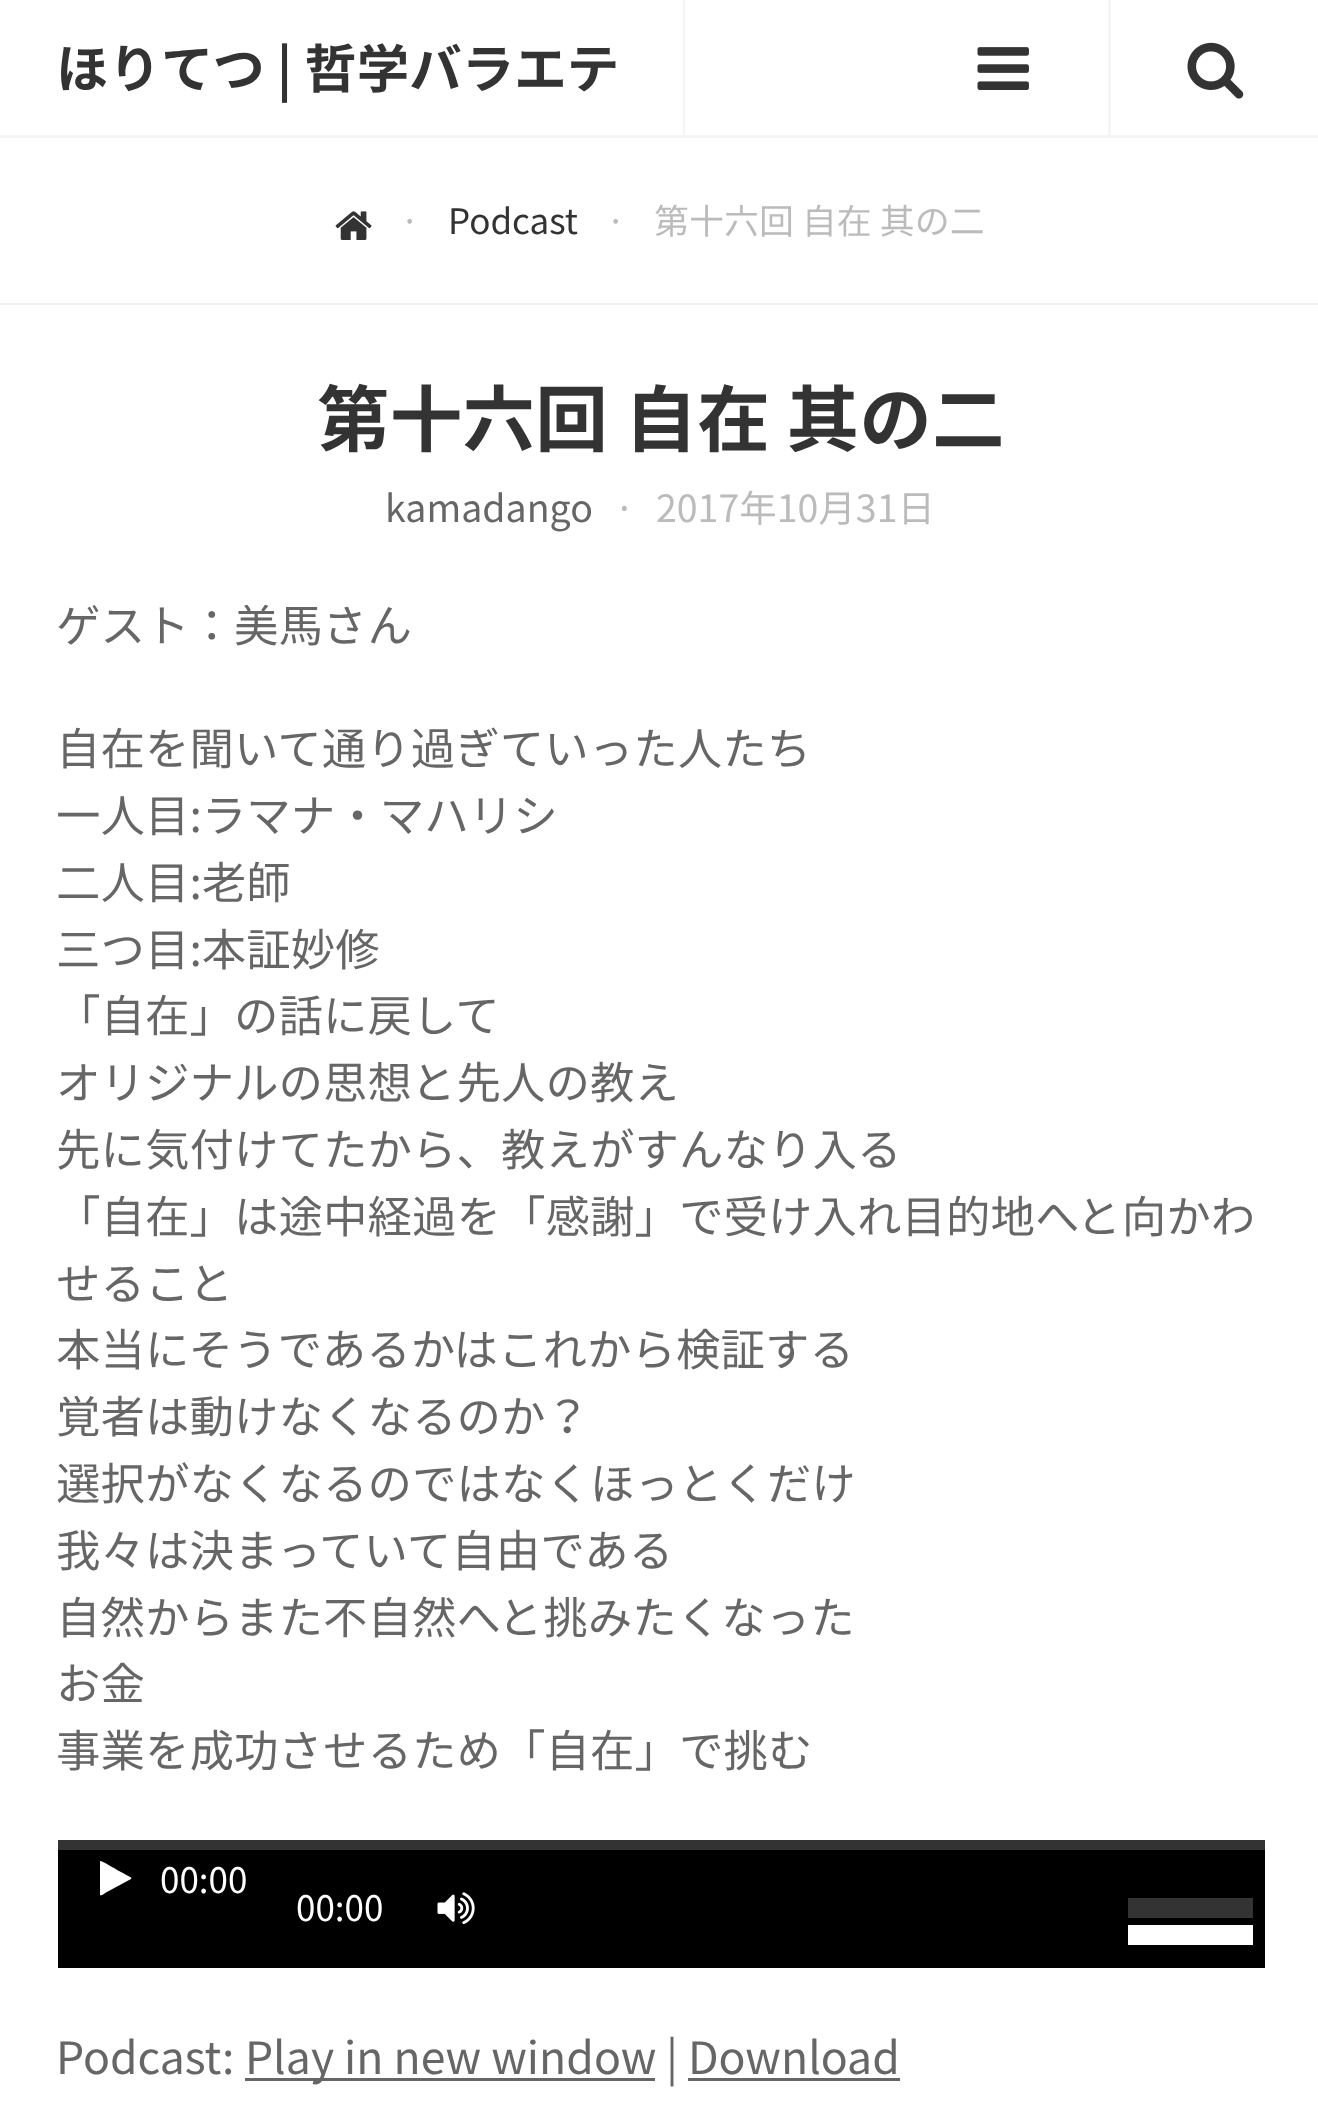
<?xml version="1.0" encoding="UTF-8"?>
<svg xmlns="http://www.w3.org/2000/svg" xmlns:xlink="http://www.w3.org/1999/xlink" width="1318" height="2107">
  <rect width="100%" height="100%" fill="#ffffff" />
  <rect y="135" width="1318" height="3" fill="#f5f5f5" />
  <rect x="683" width="2" height="135" fill="#f5f5f5" />
  <image x="977" y="47" width="52" height="43" xlink:href="image1.png" />
  <rect x="1108" width="3" height="135" fill="#f5f5f5" />
  <image x="1187" y="42" width="57" height="57" xlink:href="image2.png" />
  <rect y="303" width="1318" height="2" fill="#f2f2f2" />
  <image x="335" y="211" width="37" height="29" xlink:href="image3.png" />
  <rect x="58" y="1850" width="1207" height="118" fill="#000000" />
  <rect x="58" y="1840" width="1207" height="10" fill="#333333" />
  <path d="M 131 1879 l -25 13.5 c -0.5 0.5 -5 4 -6 2.5 v -33.5 l 0.5 -0.5 c 1 -0.5 18.5 10 20.5 11 l 10 5.5 l 0.5 0.5 z" fill="#ffffff" />
  <image x="437" y="1892" width="38" height="33" xlink:href="image4.png" />
  <rect x="1128" y="1898" width="125" height="20" fill="#333333" />
  <rect x="1128" y="1925" width="125" height="20" fill="#ffffff" />
  <rect x="245" y="2078" width="410" height="3" fill="#666666" />
  <rect x="688" y="2078" width="212" height="3" fill="#666666" />
  <text x="56" y="88" style="font-family: Noto Sans JP; font-size: 52.5px; font-weight: bold; fill: #333333">ほりてつ | 哲学バラエテ</text>
  <text x="400" y="234" style="font-family: Noto Sans JP; font-size: 35px; fill: #bbbbbb">·</text>
  <text x="448" y="234" style="font-family: Noto Sans JP; font-size: 35px; fill: #333333">Podcast</text>
  <text x="606" y="234" style="font-family: Noto Sans JP; font-size: 35px; fill: #bbbbbb">·</text>
  <text x="654" y="234" style="font-family: Noto Sans JP; font-size: 35px; fill: #bbbbbb">第十六回 自在 其の二</text>
  <text x="317" y="446" style="font-family: Noto Sans JP; font-size: 72.75px; font-weight: bold; fill: #333333">第十六回 自在 其の二</text>
  <text x="385" y="522" style="font-family: Noto Sans JP; font-size: 37.5px; fill: #666666">kamadango</text>
  <text x="614" y="522" style="font-family: Noto Sans JP; font-size: 37.5px; fill: #bbbbbb">·</text>
  <text x="656" y="522" style="font-family: Noto Sans JP; font-size: 37.5px; fill: #bbbbbb">2017年10月31日</text>
  <text x="56" y="642" style="font-family: Noto Sans JP; font-size: 44.5px; fill: #666666">ゲスト：美馬さん</text>
  <text x="56" y="765" style="font-family: Noto Sans JP; font-size: 44.5px; fill: #666666">自在を聞いて通り過ぎていった人たち</text>
  <text x="56" y="832" style="font-family: Noto Sans JP; font-size: 44.5px; fill: #666666">一人目:ラマナ・マハリシ</text>
  <text x="56" y="899" style="font-family: Noto Sans JP; font-size: 44.5px; fill: #666666">二人目:老師</text>
  <text x="56" y="966" style="font-family: Noto Sans JP; font-size: 44.5px; fill: #666666">三つ目:本証妙修</text>
  <text x="56" y="1032" style="font-family: Noto Sans JP; font-size: 44.5px; fill: #666666">「自在」の話に戻して</text>
  <text x="56" y="1099" style="font-family: Noto Sans JP; font-size: 44.5px; fill: #666666">オリジナルの思想と先人の教え</text>
  <text x="56" y="1166" style="font-family: Noto Sans JP; font-size: 44.5px; fill: #666666">先に気付けてたから、教えがすんなり入る</text>
  <text x="56" y="1233" style="font-family: Noto Sans JP; font-size: 44.5px; fill: #666666">「自在」は途中経過を「感謝」で受け入れ目的地へと向かわ</text>
  <text x="56" y="1300" style="font-family: Noto Sans JP; font-size: 44.5px; fill: #666666">せること</text>
  <text x="56" y="1366" style="font-family: Noto Sans JP; font-size: 44.5px; fill: #666666">本当にそうであるかはこれから検証する</text>
  <text x="56" y="1433" style="font-family: Noto Sans JP; font-size: 44.5px; fill: #666666">覚者は動けなくなるのか？</text>
  <text x="56" y="1500" style="font-family: Noto Sans JP; font-size: 44.5px; fill: #666666">選択がなくなるのではなくほっとくだけ</text>
  <text x="56" y="1567" style="font-family: Noto Sans JP; font-size: 44.5px; fill: #666666">我々は決まっていて自由である</text>
  <text x="56" y="1634" style="font-family: Noto Sans JP; font-size: 44.5px; fill: #666666">自然からまた不自然へと挑みたくなった</text>
  <text x="56" y="1700" style="font-family: Noto Sans JP; font-size: 44.5px; fill: #666666">お金</text>
  <text x="56" y="1767" style="font-family: Noto Sans JP; font-size: 44.5px; fill: #666666">事業を成功させるため「自在」で挑む</text>
  <text x="160" y="1893" style="font-family: Noto Sans JP; font-size: 35px; fill: #ffffff">00:00</text>
  <text x="296" y="1921" style="font-family: Noto Sans JP; font-size: 35px; fill: #ffffff">00:00</text>
  <text x="56" y="2074" style="font-family: Noto Sans JP; font-size: 44.5px; fill: #666666">Podcast:</text>
  <text x="245" y="2074" style="font-family: Noto Sans JP; font-size: 44.5px; fill: #666666">Play in new window</text>
  <text x="666" y="2074" style="font-family: Noto Sans JP; font-size: 44.5px; fill: #666666">| Download</text>
</svg>
